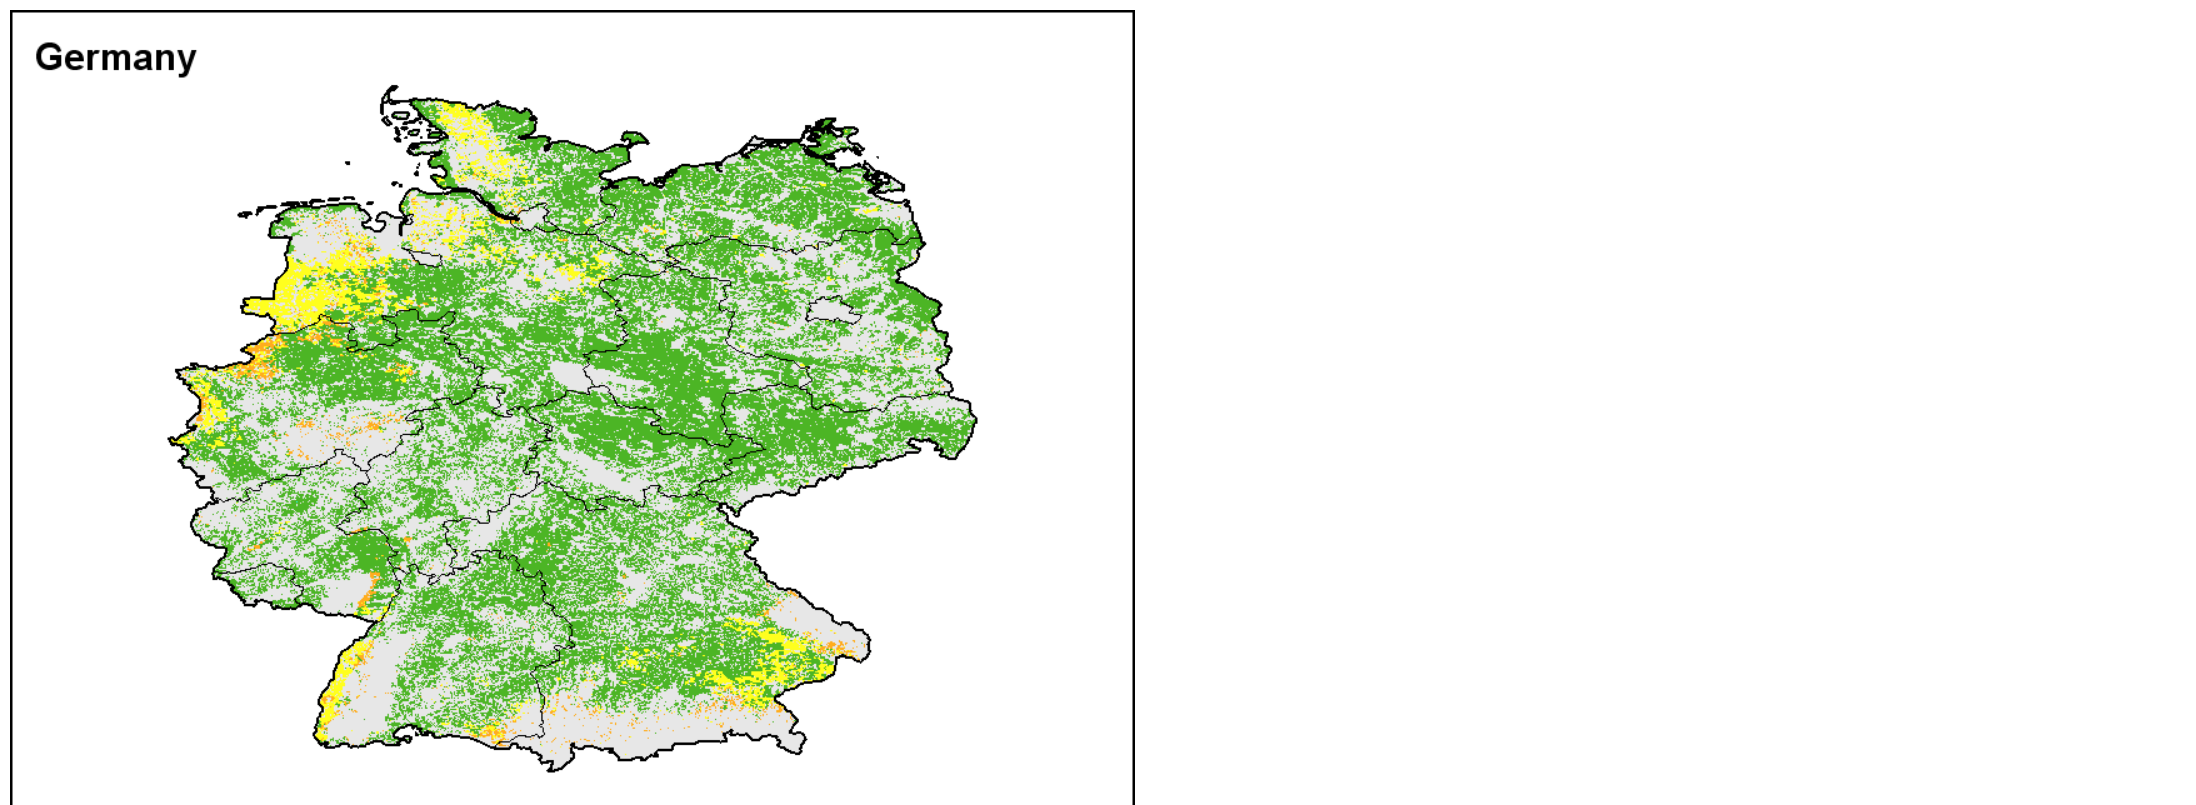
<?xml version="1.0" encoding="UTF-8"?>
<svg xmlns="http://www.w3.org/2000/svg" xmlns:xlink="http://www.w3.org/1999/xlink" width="2196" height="805">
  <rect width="100%" height="100%" fill="#ffffff" />
  <image x="10" y="10" width="1125" height="795" xlink:href="image1.png" />
</svg>
